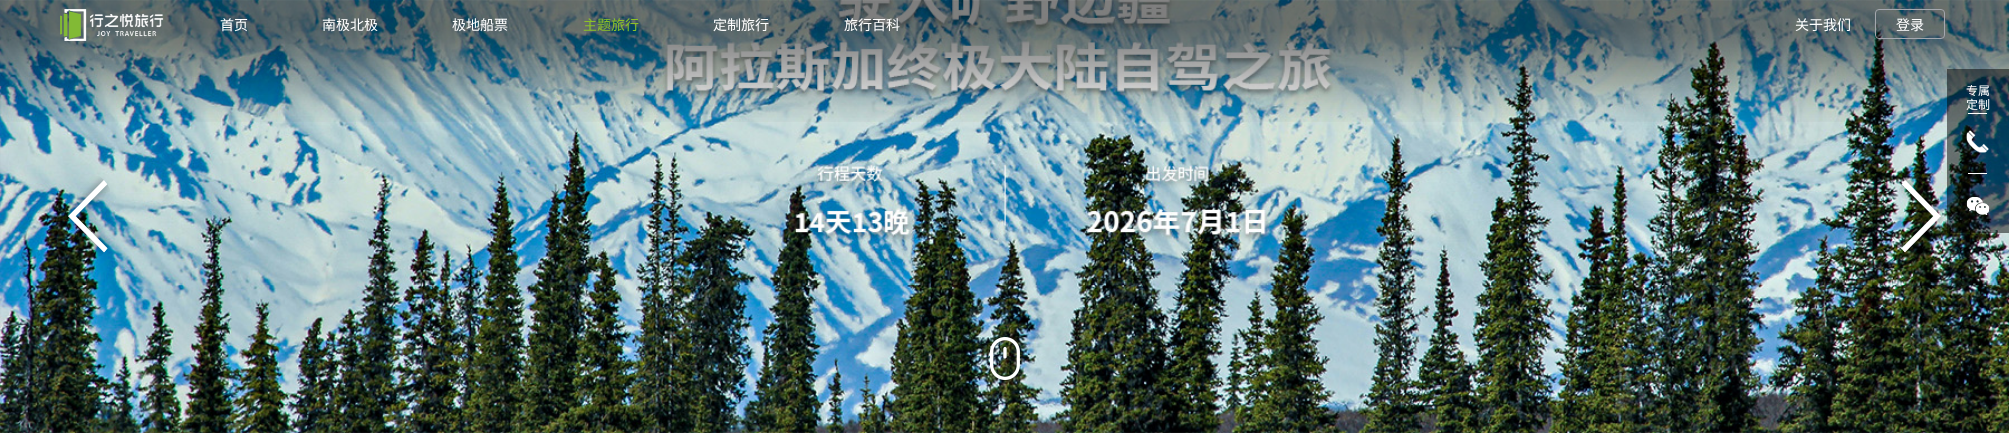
<?xml version="1.0" encoding="UTF-8"?>
<svg xmlns="http://www.w3.org/2000/svg" xmlns:xlink="http://www.w3.org/1999/xlink" width="2009" height="433">
  <rect width="100%" height="100%" fill="#ffffff" />
  <image x="0" y="0" width="2009" height="433" xlink:href="image1.png" />
  <image x="0" y="0" width="2009" height="122" xlink:href="image2.png" />
  <image x="66" y="176" width="44" height="80" xlink:href="image3.png" />
  <image x="1899" y="177" width="47" height="77" xlink:href="image4.png" />
  <image x="990" y="337" width="30" height="43" xlink:href="image5.png" />
  <image x="60" y="9" width="104" height="32" xlink:href="image6.png" />
  <rect x="1875.5" y="9.5" width="69" height="29" rx="3.5" fill="none" stroke="#a4a7ae" />
  <rect x="1947" y="69" width="62" height="164" fill="#000000" fill-opacity="0.5" />
  <image x="1966" y="113" width="23" height="40" xlink:href="image7.png" />
  <image x="1966" y="173" width="24" height="42" xlink:href="image8.png" />
  <text x="220" y="30" style="font-family: Noto Sans CJK SC; font-size: 14px; fill: #ffffff">首页</text>
  <text x="322" y="30" style="font-family: Noto Sans CJK SC; font-size: 14px; fill: #ffffff">南极北极</text>
  <text x="452" y="30" style="font-family: Noto Sans CJK SC; font-size: 14px; fill: #ffffff">极地船票</text>
  <text x="583" y="30" style="font-family: Noto Sans CJK SC; font-size: 14px; fill: #8cc227">主题旅行</text>
  <text x="713" y="30" style="font-family: Noto Sans CJK SC; font-size: 14px; fill: #ffffff">定制旅行</text>
  <text x="844" y="30" style="font-family: Noto Sans CJK SC; font-size: 14px; fill: #ffffff">旅行百科</text>
  <text x="1795" y="30" style="font-family: Noto Sans CJK SC; font-size: 14px; fill: #ffffff">关于我们</text>
  <text x="1896" y="30" style="font-family: Noto Sans CJK SC; font-size: 14px; fill: #ffffff">登录</text>
  <text x="1966" y="95" style="font-family: Noto Sans CJK SC; font-size: 12px; fill: #ffffff">专属</text>
  <text x="1966" y="109" style="font-family: Noto Sans CJK SC; font-size: 12px; fill: #ffffff">定制</text>
</svg>
